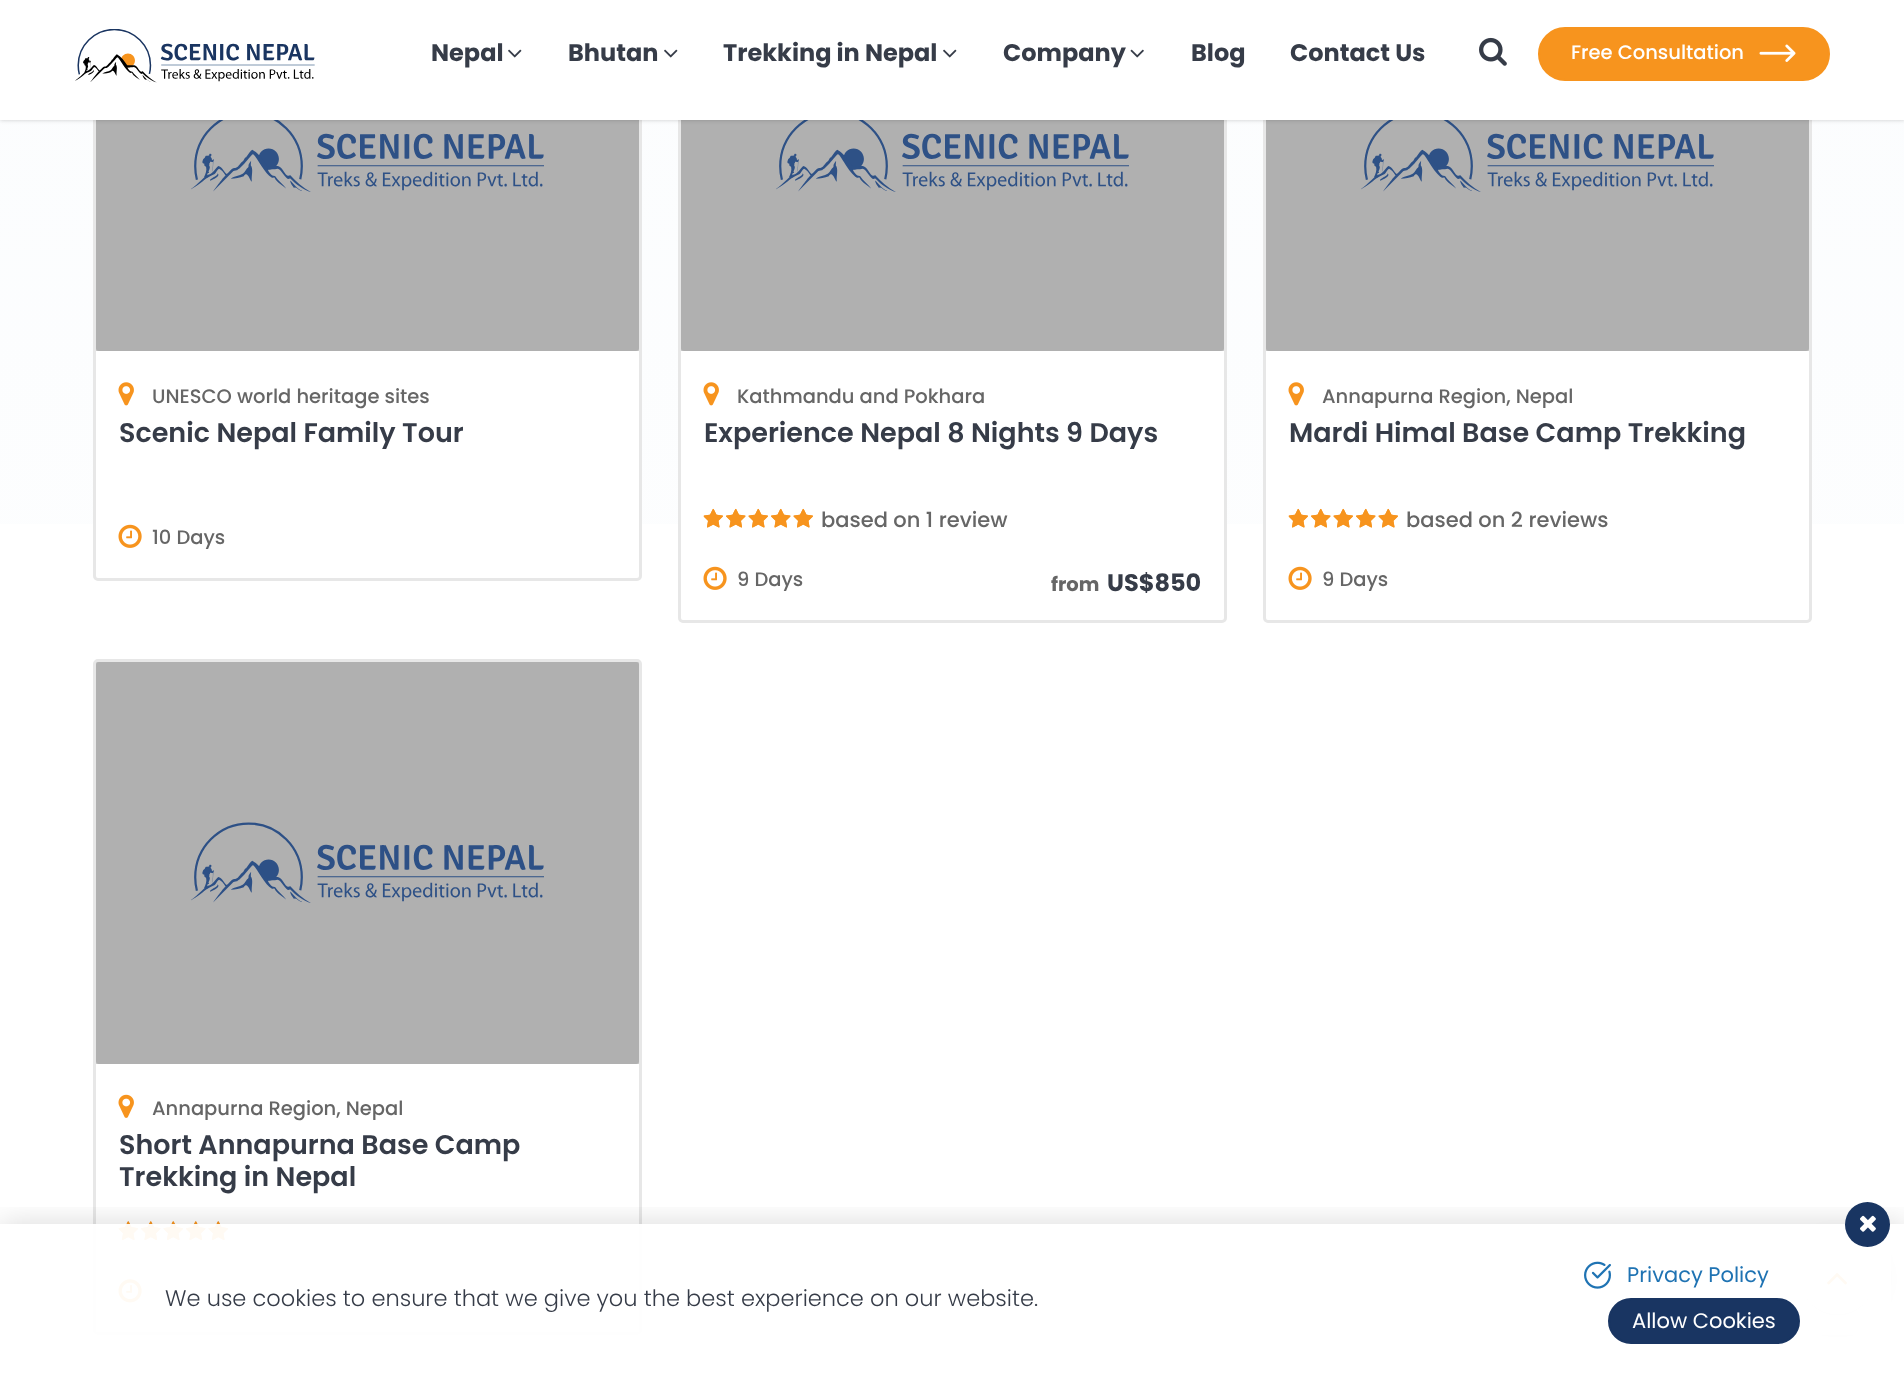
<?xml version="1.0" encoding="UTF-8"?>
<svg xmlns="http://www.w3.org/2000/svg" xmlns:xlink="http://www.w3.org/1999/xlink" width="1904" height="1374">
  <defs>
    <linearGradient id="g1" gradientUnits="userSpaceOnUse" x1="952" y1="-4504" x2="953" y2="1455"><stop offset="0" stop-color="#eff5fa" /><stop offset="1" stop-color="#ffffff" /></linearGradient>
    <clipPath id="clip1"><rect x="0" y="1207" width="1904" height="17" /></clipPath>
  </defs>
  <rect width="100%" height="100%" fill="#ffffff" />
  <rect y="120" width="1904" height="404" fill="url(#g1)" />
  <rect x="93" y="-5" width="549" height="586" rx="5" fill="#ffffff" />
  <rect x="96" y="348" width="543" height="3" fill="#cccccc" />
  <rect x="94.5" y="-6.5" width="546" height="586" rx="3.5" fill="none" stroke="#e7e7e7" stroke-width="3" />
  <rect x="96" y="-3" width="543" height="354" rx="3" fill="#b0b0b0" />
  <image x="191" y="120" width="353" height="72" xlink:href="image6.png" />
  <rect x="678" y="-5" width="549" height="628" rx="5" fill="#ffffff" />
  <rect x="681" y="348" width="543" height="3" fill="#cccccc" />
  <rect x="679.5" y="-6.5" width="546" height="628" rx="3.5" fill="none" stroke="#e7e7e7" stroke-width="3" />
  <rect x="681" y="-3" width="543" height="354" rx="3" fill="#b0b0b0" />
  <image x="776" y="120" width="353" height="72" xlink:href="image9.png" />
  <rect x="1263" y="-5" width="549" height="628" rx="5" fill="#ffffff" />
  <rect x="1266" y="348" width="543" height="3" fill="#cccccc" />
  <rect x="1264.5" y="-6.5" width="546" height="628" rx="3.5" fill="none" stroke="#e7e7e7" stroke-width="3" />
  <rect x="1266" y="-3" width="543" height="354" rx="3" fill="#b0b0b0" />
  <image x="1361" y="120" width="353" height="72" xlink:href="image12.png" />
  <rect y="-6" width="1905" height="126" fill="#000000" fill-opacity="0.2" filter="blur(2px)" />
  <rect width="1904" height="120" fill="#ffffff" />
  <image x="75" y="29" width="240" height="54" xlink:href="image1.png" />
  <image x="508" y="49" width="14" height="9" xlink:href="image2.png" />
  <image x="664" y="49" width="14" height="9" xlink:href="image2.png" />
  <image x="943" y="49" width="14" height="9" xlink:href="image2.png" />
  <image x="1130" y="49" width="14" height="9" xlink:href="image3.png" />
  <image x="1479" y="37" width="28" height="29" xlink:href="image4.png" />
  <rect x="1539" y="28" width="290" height="52" rx="26" fill="#f7941e" stroke="#f7941e" stroke-width="2" />
  <image x="1759" y="44" width="37" height="18" xlink:href="image5.png" />
  <image x="118" y="382" width="16" height="24" xlink:href="image7.png" />
  <image x="118" y="524" width="24" height="24" xlink:href="image8.png" />
  <image x="703" y="382" width="16" height="24" xlink:href="image7.png" />
  <image x="703" y="508" width="110" height="20" xlink:href="image10.png" />
  <image x="704" y="509" width="109" height="19" xlink:href="image11.png" />
  <image x="703" y="566" width="24" height="24" xlink:href="image8.png" />
  <image x="1288" y="382" width="16" height="24" xlink:href="image7.png" />
  <image x="1288" y="508" width="110" height="20" xlink:href="image10.png" />
  <image x="1289" y="509" width="109" height="19" xlink:href="image11.png" />
  <image x="1288" y="566" width="24" height="24" xlink:href="image8.png" />
  <rect x="94.5" y="660.5" width="546" height="673" rx="3.5" fill="none" stroke="#e7e7e7" stroke-width="3" />
  <rect x="96" y="662" width="543" height="402" rx="3" fill="#dcdcdc" />
  <image x="191" y="822" width="353" height="81" xlink:href="image13.png" />
  <path d="M 97.5 662 h 540 c 1 0 1.5 0.5 1.5 1.5 v 400.5 h -543 v -400.5 c 0 -1 0.5 -1.5 1.5 -1.5 z" fill="#000000" fill-opacity="0.2" />
  <image x="118" y="1094" width="16" height="24" xlink:href="image14.png" />
  <image x="118" y="1221" width="110" height="19" xlink:href="image15.png" />
  <image x="119" y="1221" width="109" height="19" xlink:href="image16.png" />
  <image x="118" y="1279" width="24" height="24" xlink:href="image17.png" />
  <rect x="1800" y="1241" width="75" height="75" rx="37.5" fill="#000000" fill-opacity="0.15" filter="blur(11px)" />
  <circle cx="1837.5" cy="1276.5" r="37.5" fill="#ffffff" />
  <image x="1827" y="1273" width="20" height="12" xlink:href="image20.png" />
  <g clip-path="url(#clip1)">
    <rect y="1224" width="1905" height="150" fill="#000000" fill-opacity="0.15" filter="blur(15px)" />
  </g>
  <rect x="93" y="1224" width="1798" height="111" fill="#ffffff" fill-opacity="0.95" />
  <circle cx="1867.5" cy="1224.5" r="22.5" fill="#193562" />
  <image x="1860" y="1215" width="16" height="17" xlink:href="image18.png" />
  <image x="1584" y="1261" width="27" height="28" xlink:href="image19.png" />
  <rect x="1609" y="1299" width="190" height="44" rx="22" fill="#193562" stroke="#193562" stroke-width="2" />
  <text x="431" y="61" style="font-family: Poppins; font-size: 24px; font-weight: bold; fill: #363c48">Nepal</text>
  <text x="568" y="61" style="font-family: Poppins; font-size: 24px; font-weight: bold; fill: #363c48">Bhutan</text>
  <text x="723" y="61" style="font-family: Poppins; font-size: 24px; font-weight: bold; fill: #363c48">Trekking in Nepal</text>
  <text x="1003" y="61" style="font-family: Poppins; font-size: 24px; font-weight: bold; fill: #363c48">Company</text>
  <text x="1191" y="61" style="font-family: Poppins; font-size: 24px; font-weight: bold; fill: #363c48">Blog</text>
  <text x="1290" y="61" style="font-family: Poppins; font-size: 24px; font-weight: bold; fill: #363c48">Contact Us</text>
  <text x="1571" y="59" style="font-family: Poppins; font-size: 19.5px; font-weight: 500; fill: #ffffff">Free Consultation</text>
  <text x="152" y="403" style="font-family: Poppins; font-size: 19.5px; font-weight: 500; fill: #666666">UNESCO world heritage sites</text>
  <text x="119" y="442" style="font-family: Poppins; font-size: 27px; font-weight: 600; fill: #363c48">Scenic Nepal Family Tour</text>
  <text x="152" y="544" style="font-family: Poppins; font-size: 19.5px; font-weight: 500; fill: #666666">10 Days</text>
  <text x="737" y="403" style="font-family: Poppins; font-size: 19.5px; font-weight: 500; fill: #666666">Kathmandu and Pokhara</text>
  <text x="704" y="442" style="font-family: Poppins; font-size: 27px; font-weight: 600; fill: #363c48">Experience Nepal 8 Nights 9 Days</text>
  <text x="821" y="527" style="font-family: Poppins; font-size: 21px; font-weight: 500; fill: #666666">based on 1 review</text>
  <text x="737" y="586" style="font-family: Poppins; font-size: 19.5px; font-weight: 500; fill: #666666">9 Days</text>
  <text x="1051" y="591" style="font-family: Poppins; font-size: 19.5px; font-weight: bold; fill: #666666">from</text>
  <text x="1107" y="591" style="font-family: Poppins; font-size: 24px; font-weight: bold; fill: #363c48">US$850</text>
  <text x="1322" y="403" style="font-family: Poppins; font-size: 19.5px; font-weight: 500; fill: #666666">Annapurna Region, Nepal</text>
  <text x="1289" y="442" style="font-family: Poppins; font-size: 27px; font-weight: 600; fill: #363c48">Mardi Himal Base Camp Trekking</text>
  <text x="1406" y="527" style="font-family: Poppins; font-size: 21px; font-weight: 500; fill: #666666">based on 2 reviews</text>
  <text x="1322" y="586" style="font-family: Poppins; font-size: 19.5px; font-weight: 500; fill: #666666">9 Days</text>
  <text x="152" y="1115" style="font-family: Poppins; font-size: 19.5px; font-weight: 500; fill: #666666">Annapurna Region, Nepal</text>
  <text x="119" y="1154" style="font-family: Poppins; font-size: 27px; font-weight: 600; fill: #363c48">Short Annapurna Base Camp</text>
  <text x="119" y="1186" style="font-family: Poppins; font-size: 27px; font-weight: 600; fill: #363c48">Trekking in Nepal</text>
  <text x="165" y="1306" style="font-family: Poppins; font-size: 22.5px; font-weight: 300; fill: #363c48">We use cookies to ensure that we give you the best experience on our website.</text>
  <text x="1627" y="1282" style="font-family: Poppins; font-size: 21px; fill: #1f73b3">Privacy Policy</text>
  <text x="1632" y="1328" style="font-family: Poppins; font-size: 21px; fill: #ffffff">Allow Cookies</text>
</svg>
